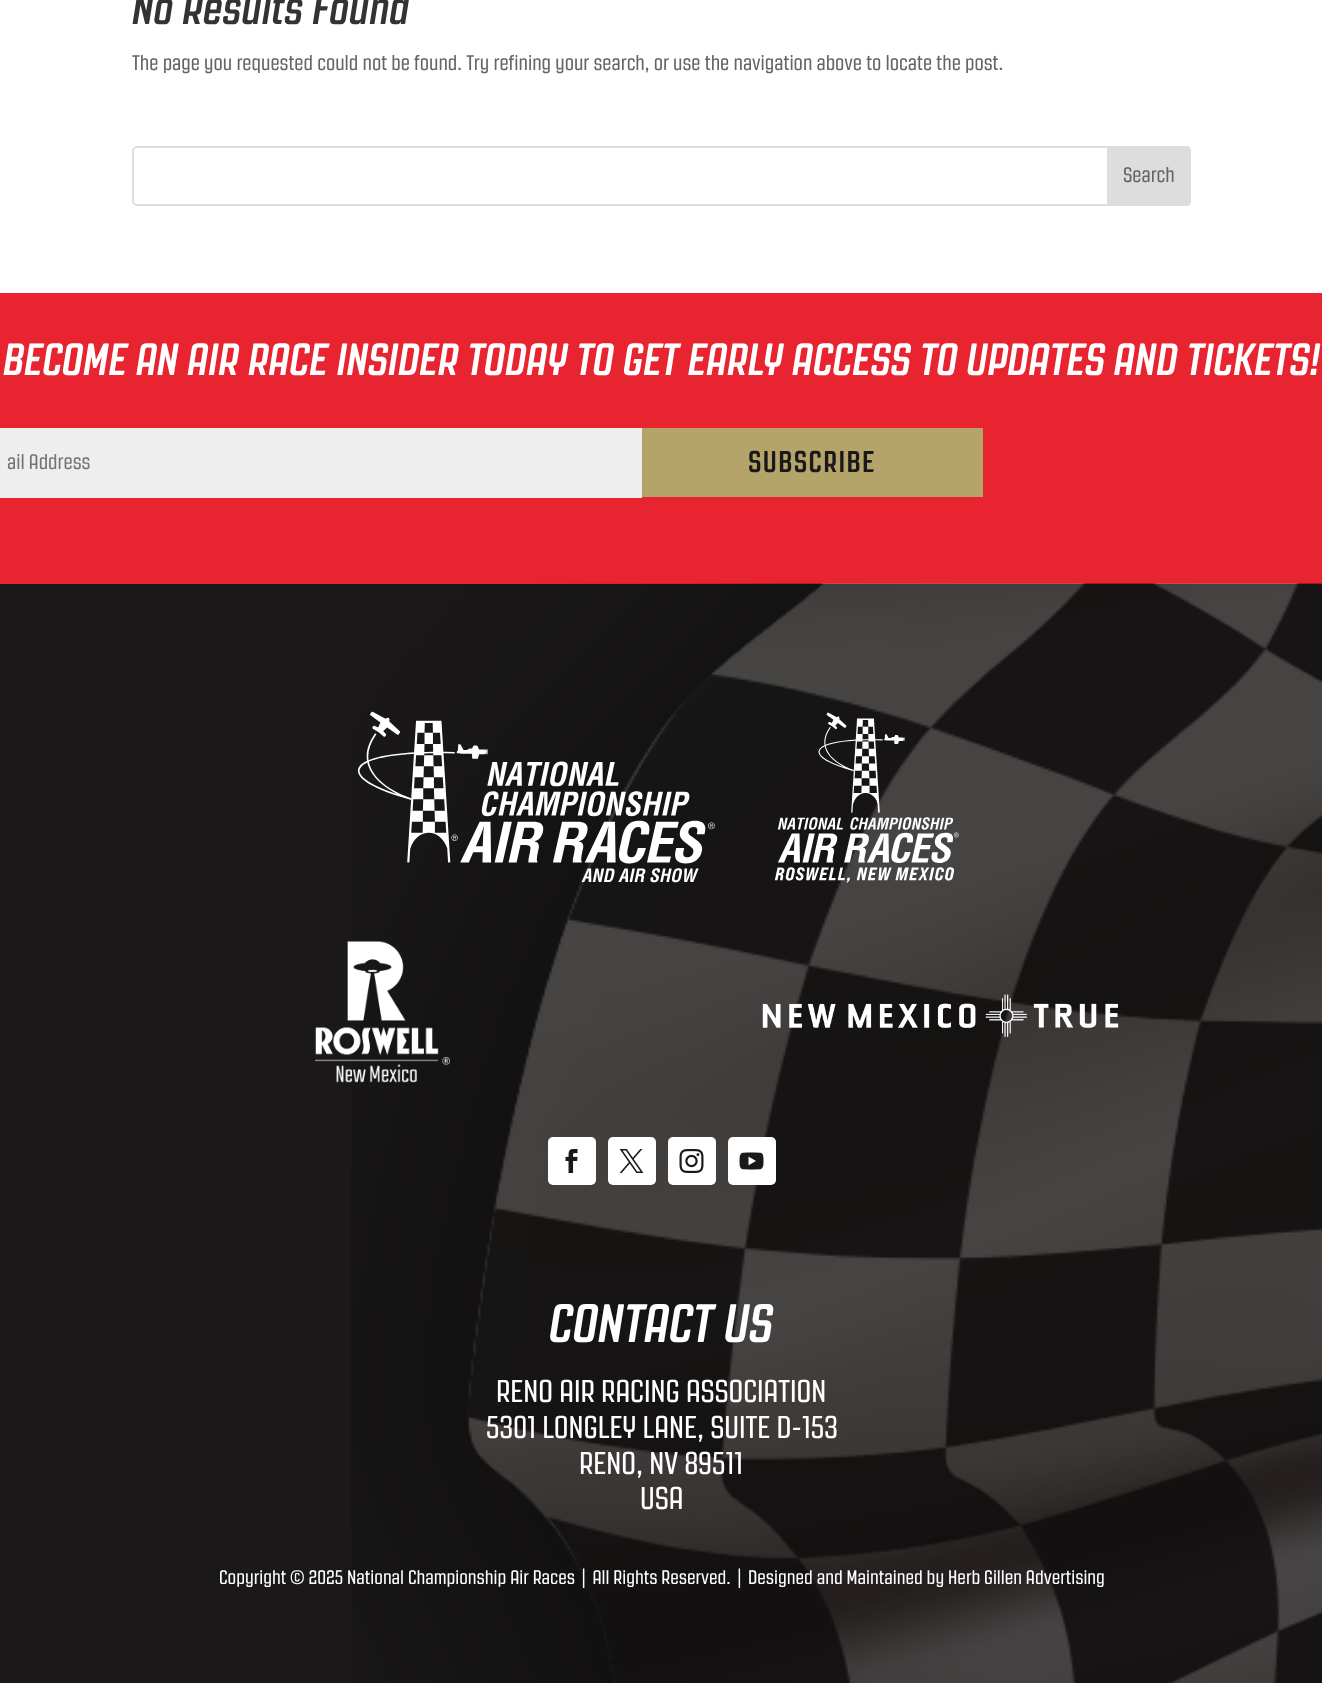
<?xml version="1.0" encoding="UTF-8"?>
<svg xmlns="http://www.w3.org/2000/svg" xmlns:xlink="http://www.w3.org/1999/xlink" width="1322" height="1683">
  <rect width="100%" height="100%" fill="#ffffff" />
  <rect x="133" y="147" width="1057" height="58" rx="4" fill="none" stroke="#dddddd" stroke-width="2" />
  <path d="M 1108 147 h 78 c 2 0 4 2 4 4 v 50 c 0 2 -2 4 -4 4 h -78 z" fill="#dddddd" stroke="#dddddd" stroke-width="2" />
  <rect y="293" width="1322" height="291" fill="#e72430" />
  <rect y="428" width="642" height="70" fill="#eeeeee" />
  <rect x="642" y="428" width="341" height="69" fill="#b5a46a" />
  <rect y="584" width="1322" height="1099" fill="#1a1818" />
  <image x="351" y="583" width="971" height="1100" xlink:href="image1.png" />
  <image x="357" y="711" width="602" height="172" xlink:href="image2.png" />
  <image x="315" y="941" width="135" height="142" xlink:href="image3.png" />
  <image x="762" y="994" width="357" height="43" xlink:href="image4.png" />
  <rect x="548" y="1137" width="48" height="48" rx="5" fill="#ffffff" />
  <image x="565" y="1149" width="13" height="24" xlink:href="image5.png" />
  <rect x="608" y="1137" width="48" height="48" rx="5" fill="#ffffff" />
  <image x="619" y="1149" width="25" height="24" xlink:href="image6.png" />
  <rect x="668" y="1137" width="48" height="48" rx="5" fill="#ffffff" />
  <image x="679" y="1149" width="25" height="24" xlink:href="image7.png" />
  <rect x="728" y="1137" width="48" height="48" rx="5" fill="#ffffff" />
  <image x="739" y="1152" width="25" height="18" xlink:href="image8.png" />
  <text x="132" y="24" style="font-family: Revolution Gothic; font-size: 45px; font-weight: bold; font-style: italic; fill: #333333">No Results Found</text>
  <text x="132" y="70" style="font-family: Revolution Gothic; font-size: 21px; fill: #666666">The page you requested could not be found. Try refining your search, or use the navigation above to locate the post.</text>
  <text x="1123" y="182" style="font-family: Revolution Gothic; font-size: 21px; fill: #666666">Search</text>
  <text x="3" y="375" style="font-family: Revolution Gothic; font-size: 45px; font-weight: bold; font-style: italic; fill: #ffffff">BECOME AN AIR RACE INSIDER TODAY TO GET EARLY ACCESS TO UPDATES AND TICKETS!</text>
  <text x="7" y="469" style="font-family: Revolution Gothic; font-size: 21px; fill: #757575">ail Address</text>
  <text x="748" y="472" style="font-family: Revolution Gothic; font-size: 30px; font-weight: bold; letter-spacing: 1.5px; fill: #1a1818">SUBSCRIBE</text>
  <text x="549" y="1342" style="font-family: Revolution Gothic; font-size: 54px; font-weight: bold; font-style: italic; fill: #ffffff">CONTACT US</text>
  <text x="496" y="1402" style="font-family: Revolution Gothic; font-size: 31.5px; fill: #ffffff">RENO AIR RACING ASSOCIATION</text>
  <text x="486" y="1438" style="font-family: Revolution Gothic; font-size: 31.5px; fill: #ffffff">5301 LONGLEY LANE, SUITE D-153</text>
  <text x="579" y="1474" style="font-family: Revolution Gothic; font-size: 31.5px; fill: #ffffff">RENO, NV 89511</text>
  <text x="640" y="1509" style="font-family: Revolution Gothic; font-size: 31.5px; fill: #ffffff">USA</text>
  <text x="219" y="1584" style="font-family: Revolution Gothic; font-size: 19.5px; fill: #ffffff">Copyright © 2025 National Championship Air Races | All Rights Reserved. | Designed and Maintained by Herb Gillen Advertising</text>
</svg>
